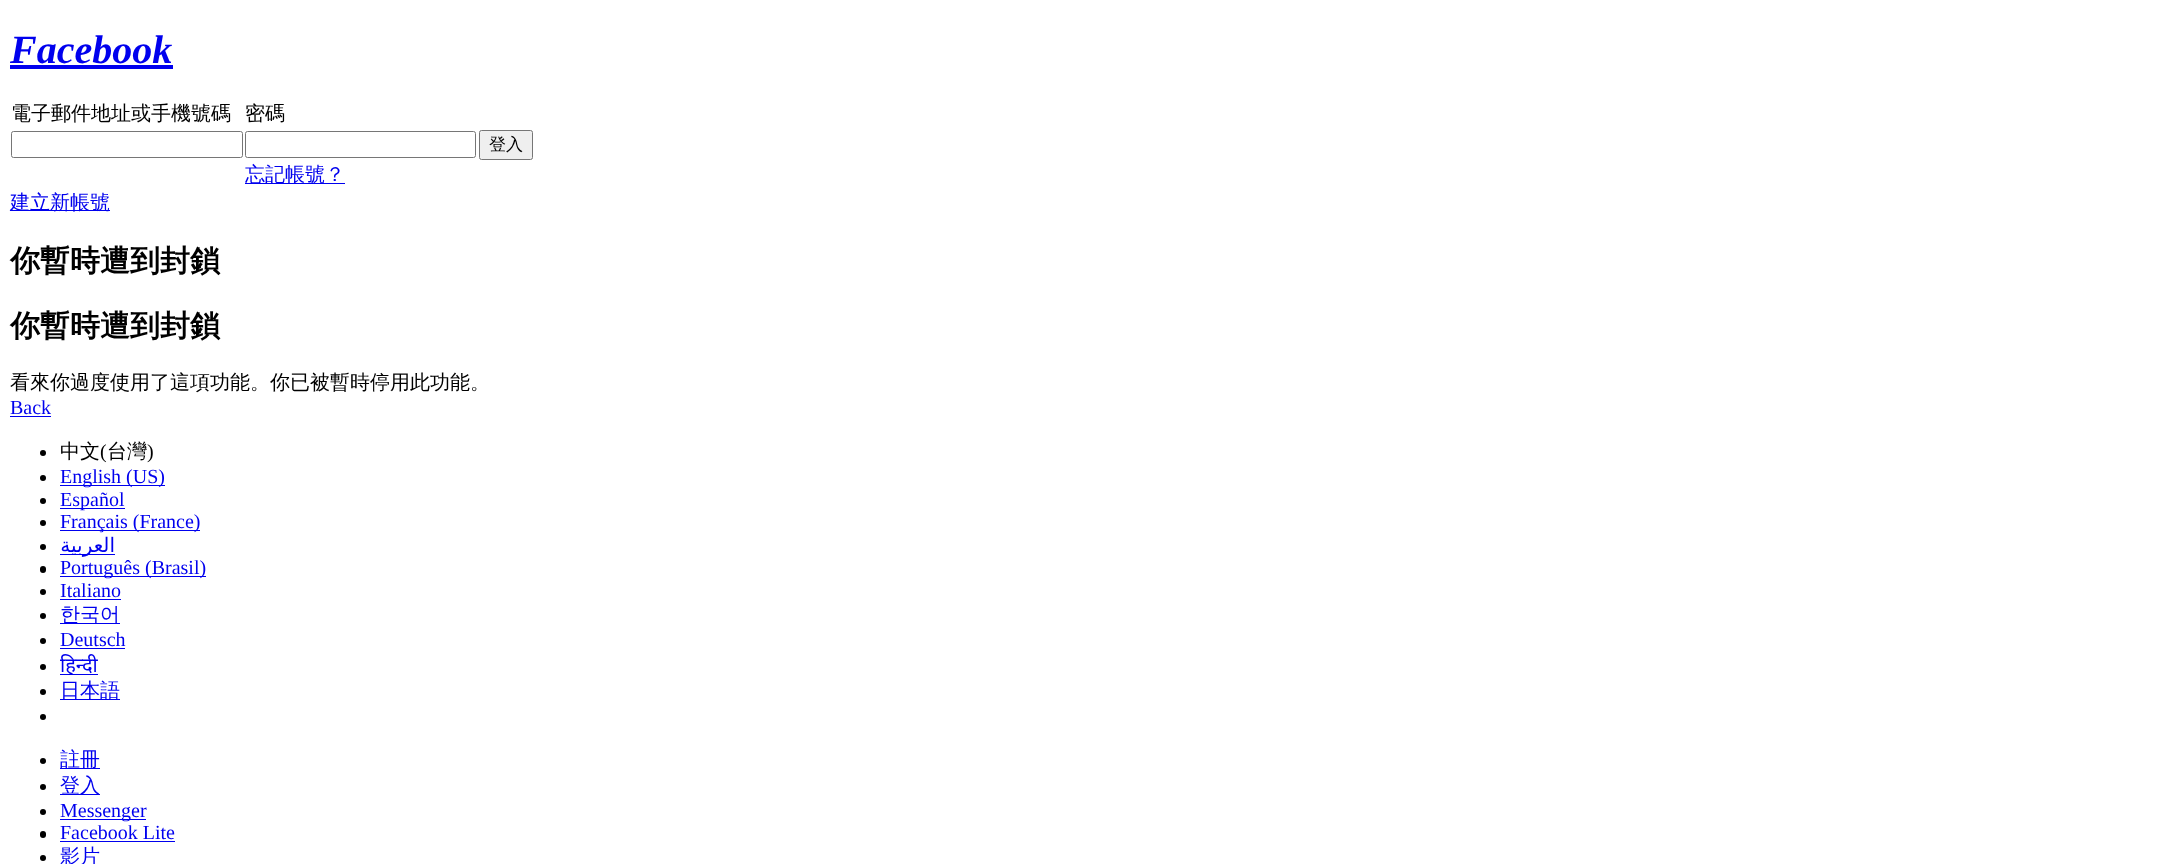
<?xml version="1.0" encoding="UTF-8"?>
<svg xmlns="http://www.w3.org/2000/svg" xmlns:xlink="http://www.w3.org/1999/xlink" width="2177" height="864">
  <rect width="100%" height="100%" fill="#ffffff" />
  <rect x="10" y="65" width="163" height="4" fill="#0000ee" />
  <rect x="11.5" y="131.5" width="231" height="26" rx="2" fill="none" stroke="#767676" />
  <rect x="245.5" y="131.5" width="230" height="26" rx="2" fill="none" stroke="#767676" />
  <rect x="479.5" y="130.5" width="53" height="29" rx="2" fill="#efefef" stroke="#767676" />
  <rect x="245" y="183" width="100" height="1" fill="#0000ee" />
  <rect x="10" y="210" width="100" height="1" fill="#0000ee" />
  <rect x="10" y="416" width="41" height="1" fill="#0000ee" />
  <circle cx="43" cy="453" r="3" fill="#000000" />
  <circle cx="43" cy="478" r="3" fill="#000000" />
  <rect x="60" y="485" width="105" height="1" fill="#0000ee" />
  <circle cx="43" cy="501" r="3" fill="#000000" />
  <rect x="60" y="508" width="65" height="1" fill="#0000ee" />
  <circle cx="43" cy="523" r="3" fill="#000000" />
  <rect x="60" y="530" width="140" height="1" fill="#0000ee" />
  <circle cx="43" cy="547" r="3" fill="#000000" />
  <rect x="60" y="554" width="55" height="1" fill="#0000ee" />
  <rect x="40" y="566" width="6" height="7" rx="3" fill="#000000" />
  <rect x="60" y="576" width="146" height="1" fill="#0000ee" />
  <circle cx="43" cy="592" r="3" fill="#000000" />
  <rect x="60" y="599" width="61" height="1" fill="#0000ee" />
  <circle cx="43" cy="616" r="3" fill="#000000" />
  <rect x="60" y="623" width="60" height="1" fill="#0000ee" />
  <circle cx="43" cy="641" r="3" fill="#000000" />
  <rect x="60" y="648" width="65" height="1" fill="#0000ee" />
  <circle cx="43" cy="667" r="3" fill="#000000" />
  <rect x="60" y="674" width="38" height="1" fill="#0000ee" />
  <circle cx="43" cy="692" r="3" fill="#000000" />
  <rect x="60" y="699" width="60" height="1" fill="#0000ee" />
  <circle cx="43" cy="717" r="3" fill="#000000" />
  <circle cx="43" cy="761" r="3" fill="#000000" />
  <rect x="60" y="768" width="40" height="1" fill="#0000ee" />
  <circle cx="43" cy="787" r="3" fill="#000000" />
  <rect x="60" y="794" width="40" height="1" fill="#0000ee" />
  <circle cx="43" cy="812" r="3" fill="#000000" />
  <rect x="60" y="819" width="86" height="1" fill="#0000ee" />
  <rect x="40" y="831" width="6" height="7" rx="3" fill="#000000" />
  <rect x="60" y="841" width="115" height="1" fill="#0000ee" />
  <circle cx="43" cy="858" r="3" fill="#000000" />
  <text x="10" y="63" style="font-family: Liberation Serif; font-size: 40px; font-weight: bold; font-style: italic; fill: #0000ee">Facebook</text>
  <text x="11" y="120" style="font-family: WenQuanYi Zen Hei; font-size: 20px; font-weight: 500; fill: #000000">電子郵件地址或手機號碼</text>
  <text x="245" y="120" style="font-family: WenQuanYi Zen Hei; font-size: 20px; font-weight: 500; fill: #000000">密碼</text>
  <text x="489" y="150" style="font-family: WenQuanYi Zen Hei; font-size: 17px; font-weight: 500; fill: #000000">登入</text>
  <text x="245" y="181" style="font-family: WenQuanYi Zen Hei; font-size: 20px; font-weight: 500; fill: #0000ee">忘記帳號？</text>
  <text x="10" y="209" style="font-family: WenQuanYi Zen Hei; font-size: 20px; font-weight: 500; fill: #0000ee">建立新帳號</text>
  <text x="10" y="271" style="font-family: WenQuanYi Zen Hei; font-size: 30px; font-weight: bold; fill: #000000">你暫時遭到封鎖</text>
  <text x="10" y="336" style="font-family: WenQuanYi Zen Hei; font-size: 30px; font-weight: bold; fill: #000000">你暫時遭到封鎖</text>
  <text x="10" y="389" style="font-family: WenQuanYi Zen Hei; font-size: 20px; font-weight: 500; fill: #000000">看來你過度使用了這項功能。你已被暫時停用此功能。</text>
  <text x="10" y="414" style="font-family: Liberation Serif; font-size: 20px; fill: #0000ee">Back</text>
  <text x="60" y="458" style="font-family: WenQuanYi Zen Hei; font-size: 20px; font-weight: 500; fill: #000000">中文</text>
  <text x="100" y="458" style="font-family: Liberation Serif; font-size: 20px; fill: #000000">(</text>
  <text x="107" y="458" style="font-family: WenQuanYi Zen Hei; font-size: 20px; font-weight: 500; fill: #000000">台灣</text>
  <text x="147" y="458" style="font-family: Liberation Serif; font-size: 20px; fill: #000000">)</text>
  <text x="60" y="483" style="font-family: Liberation Serif; font-size: 20px; fill: #0000ee">English (US)</text>
  <text x="60" y="506" style="font-family: Liberation Serif; font-size: 20px; fill: #0000ee">Español</text>
  <text x="60" y="528" style="font-family: Liberation Serif; font-size: 20px; fill: #0000ee">Français (France)</text>
  <text x="115" y="552" style="font-family: DejaVu Sans; font-size: 20px; direction: rtl; fill: #0000ee">العربية</text>
  <text x="60" y="574" style="font-family: Liberation Serif; font-size: 20px; fill: #0000ee">Português (Brasil)</text>
  <text x="60" y="597" style="font-family: Liberation Serif; font-size: 20px; fill: #0000ee">Italiano</text>
  <text x="60" y="621" style="font-family: WenQuanYi Zen Hei; font-size: 20px; font-weight: 500; fill: #0000ee">한국어</text>
  <text x="60" y="646" style="font-family: Liberation Serif; font-size: 20px; fill: #0000ee">Deutsch</text>
  <text x="60" y="672" style="font-family: Noto Sans; font-size: 20px; fill: #0000ee">हिन्दी</text>
  <text x="60" y="697" style="font-family: WenQuanYi Zen Hei; font-size: 20px; font-weight: 500; fill: #0000ee">日本語</text>
  <text x="60" y="766" style="font-family: WenQuanYi Zen Hei; font-size: 20px; font-weight: 500; fill: #0000ee">註冊</text>
  <text x="60" y="792" style="font-family: WenQuanYi Zen Hei; font-size: 20px; font-weight: 500; fill: #0000ee">登入</text>
  <text x="60" y="817" style="font-family: Liberation Serif; font-size: 20px; fill: #0000ee">Messenger</text>
  <text x="60" y="839" style="font-family: Liberation Serif; font-size: 20px; fill: #0000ee">Facebook Lite</text>
  <text x="60" y="863" style="font-family: WenQuanYi Zen Hei; font-size: 20px; font-weight: 500; fill: #0000ee">影片</text>
</svg>
